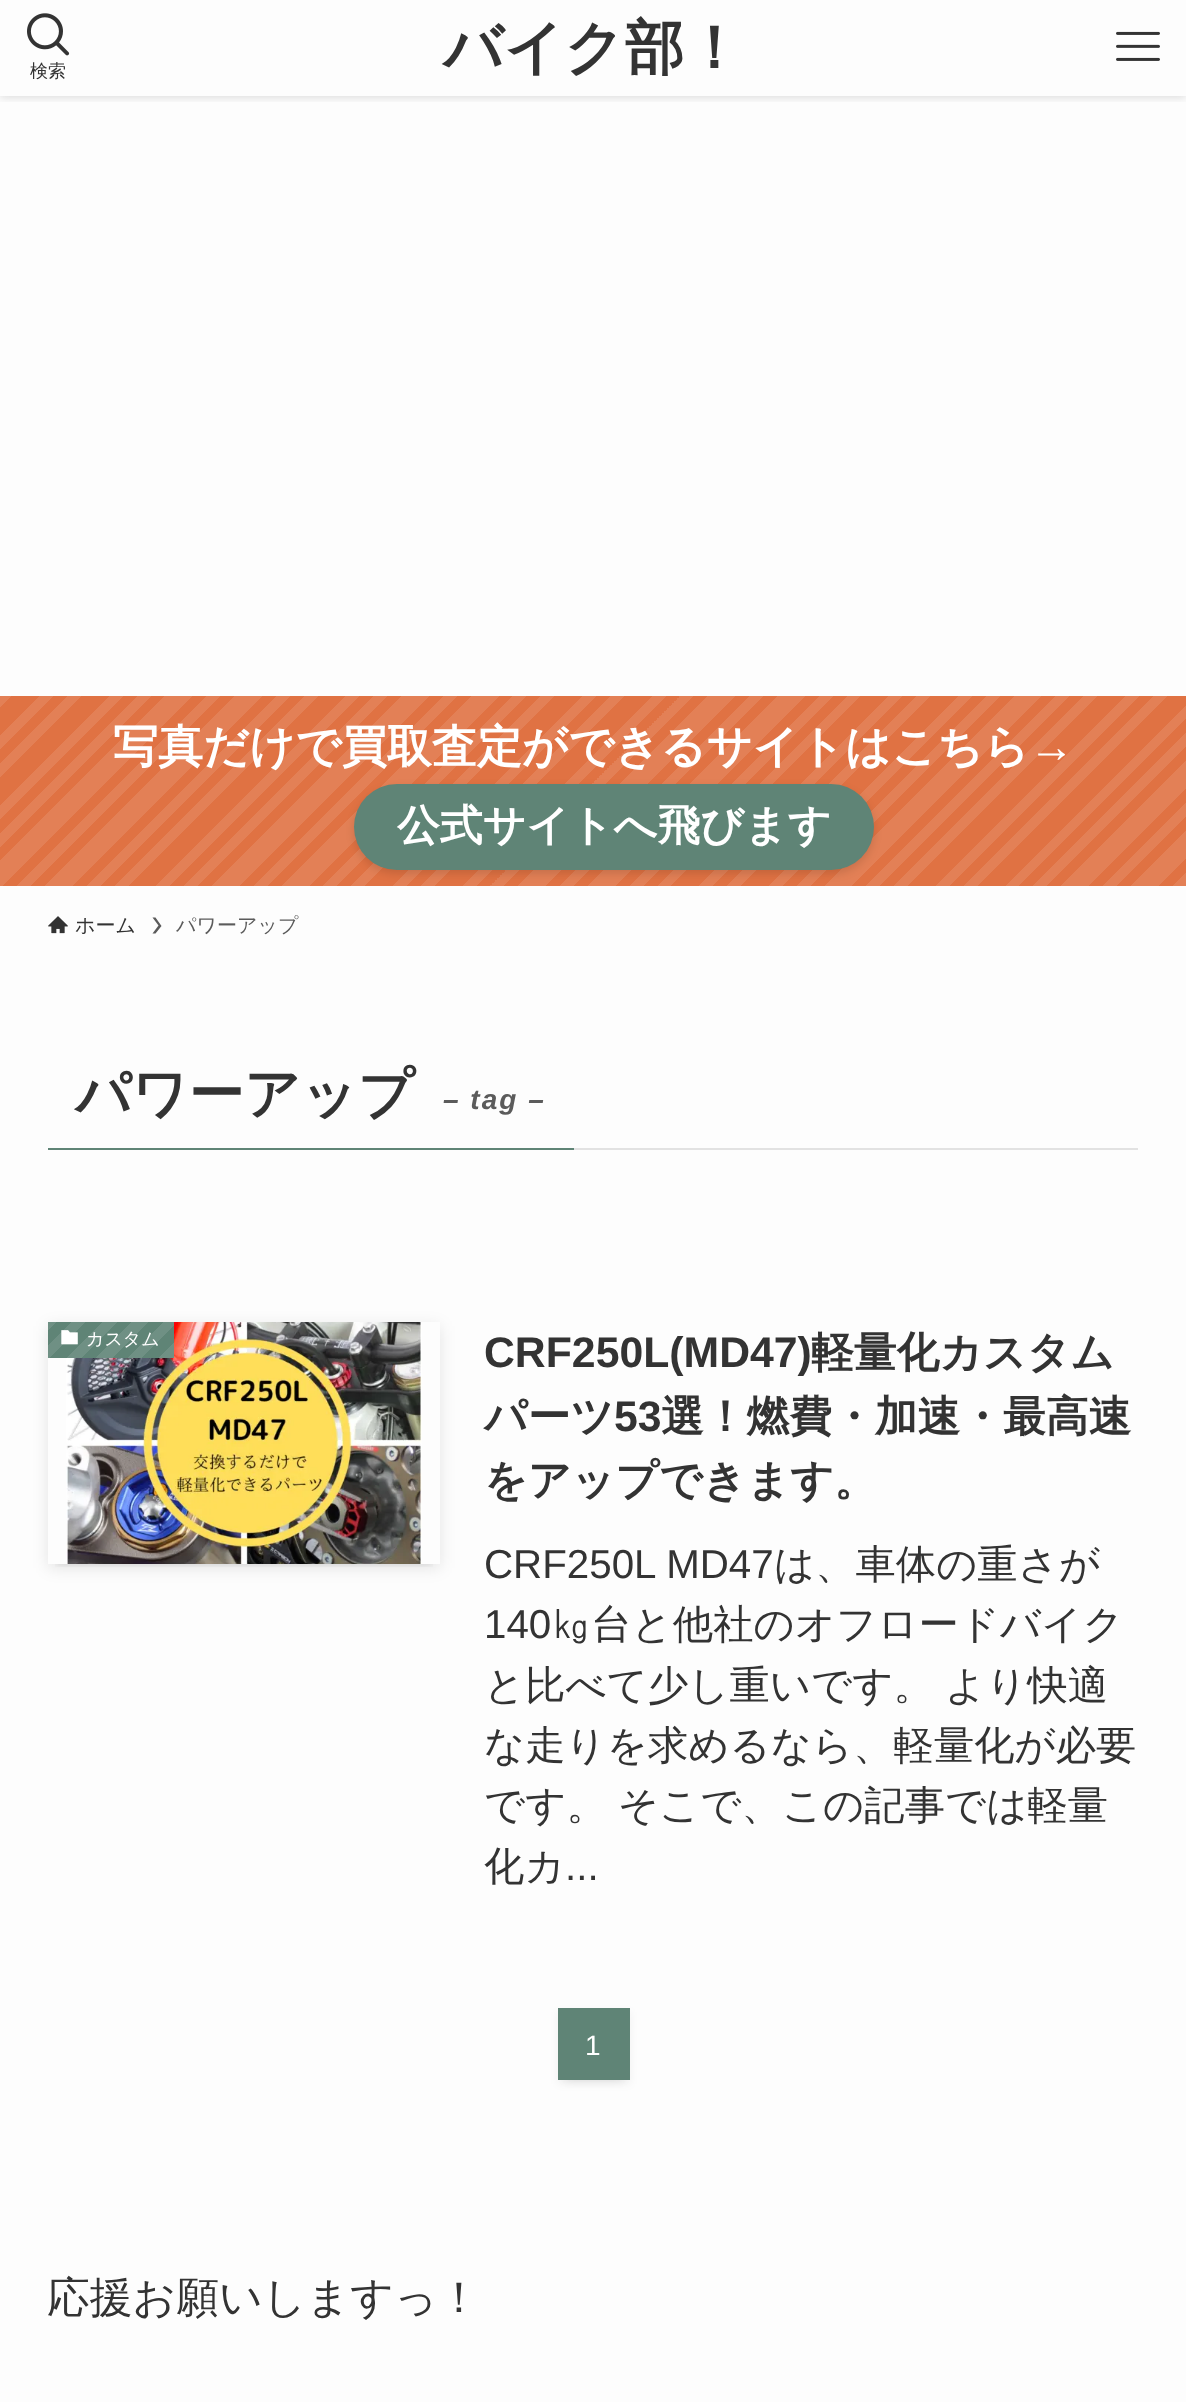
<?xml version="1.0" encoding="UTF-8"?>
<svg xmlns="http://www.w3.org/2000/svg" xmlns:xlink="http://www.w3.org/1999/xlink" width="1186" height="2402">
  <defs>
    <clipPath id="clip1"><rect x="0" y="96" width="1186" height="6" /></clipPath>
    <linearGradient id="g1" gradientUnits="userSpaceOnUse" x1="937" y1="1135" x2="241" y2="439"><stop offset="0" stop-color="#e38056" /><stop offset="0.01" stop-color="#e38056" /><stop offset="0.01" stop-color="#e07243" /><stop offset="0.02" stop-color="#e07243" /><stop offset="0.02" stop-color="#e38056" /><stop offset="0.04" stop-color="#e38056" /><stop offset="0.04" stop-color="#e07243" /><stop offset="0.05" stop-color="#e07243" /><stop offset="0.05" stop-color="#e38056" /><stop offset="0.06" stop-color="#e38056" /><stop offset="0.06" stop-color="#e07243" /><stop offset="0.07" stop-color="#e07243" /><stop offset="0.07" stop-color="#e38056" /><stop offset="0.09" stop-color="#e38056" /><stop offset="0.09" stop-color="#e07243" /><stop offset="0.1" stop-color="#e07243" /><stop offset="0.1" stop-color="#e38056" /><stop offset="0.11" stop-color="#e38056" /><stop offset="0.11" stop-color="#e07243" /><stop offset="0.12" stop-color="#e07243" /><stop offset="0.12" stop-color="#e38056" /><stop offset="0.13" stop-color="#e38056" /><stop offset="0.13" stop-color="#e07243" /><stop offset="0.15" stop-color="#e07243" /><stop offset="0.15" stop-color="#e38056" /><stop offset="0.16" stop-color="#e38056" /><stop offset="0.16" stop-color="#e07243" /><stop offset="0.17" stop-color="#e07243" /><stop offset="0.17" stop-color="#e38056" /><stop offset="0.18" stop-color="#e38056" /><stop offset="0.18" stop-color="#e07243" /><stop offset="0.2" stop-color="#e07243" /><stop offset="0.2" stop-color="#e38056" /><stop offset="0.21" stop-color="#e38056" /><stop offset="0.21" stop-color="#e07243" /><stop offset="0.22" stop-color="#e07243" /><stop offset="0.22" stop-color="#e38056" /><stop offset="0.23" stop-color="#e38056" /><stop offset="0.23" stop-color="#e07243" /><stop offset="0.24" stop-color="#e07243" /><stop offset="0.24" stop-color="#e38056" /><stop offset="0.26" stop-color="#e38056" /><stop offset="0.26" stop-color="#e07243" /><stop offset="0.27" stop-color="#e07243" /><stop offset="0.27" stop-color="#e38056" /><stop offset="0.28" stop-color="#e38056" /><stop offset="0.28" stop-color="#e07243" /><stop offset="0.29" stop-color="#e07243" /><stop offset="0.29" stop-color="#e38056" /><stop offset="0.3" stop-color="#e38056" /><stop offset="0.3" stop-color="#e07243" /><stop offset="0.32" stop-color="#e07243" /><stop offset="0.32" stop-color="#e38056" /><stop offset="0.33" stop-color="#e38056" /><stop offset="0.33" stop-color="#e07243" /><stop offset="0.34" stop-color="#e07243" /><stop offset="0.34" stop-color="#e38056" /><stop offset="0.35" stop-color="#e38056" /><stop offset="0.35" stop-color="#e07243" /><stop offset="0.37" stop-color="#e07243" /><stop offset="0.37" stop-color="#e38056" /><stop offset="0.38" stop-color="#e38056" /><stop offset="0.38" stop-color="#e07243" /><stop offset="0.39" stop-color="#e07243" /><stop offset="0.39" stop-color="#e38056" /><stop offset="0.4" stop-color="#e38056" /><stop offset="0.4" stop-color="#e07243" /><stop offset="0.41" stop-color="#e07243" /><stop offset="0.41" stop-color="#e38056" /><stop offset="0.43" stop-color="#e38056" /><stop offset="0.43" stop-color="#e07243" /><stop offset="0.44" stop-color="#e07243" /><stop offset="0.44" stop-color="#e38056" /><stop offset="0.45" stop-color="#e38056" /><stop offset="0.45" stop-color="#e07243" /><stop offset="0.46" stop-color="#e07243" /><stop offset="0.46" stop-color="#e38056" /><stop offset="0.48" stop-color="#e38056" /><stop offset="0.48" stop-color="#e07243" /><stop offset="0.49" stop-color="#e07243" /><stop offset="0.49" stop-color="#e38056" /><stop offset="0.5" stop-color="#e38056" /><stop offset="0.5" stop-color="#e07243" /><stop offset="0.51" stop-color="#e07243" /><stop offset="0.51" stop-color="#e38056" /><stop offset="0.52" stop-color="#e38056" /><stop offset="0.52" stop-color="#e07243" /><stop offset="0.54" stop-color="#e07243" /><stop offset="0.54" stop-color="#e38056" /><stop offset="0.55" stop-color="#e38056" /><stop offset="0.55" stop-color="#e07243" /><stop offset="0.56" stop-color="#e07243" /><stop offset="0.56" stop-color="#e38056" /><stop offset="0.57" stop-color="#e38056" /><stop offset="0.57" stop-color="#e07243" /><stop offset="0.59" stop-color="#e07243" /><stop offset="0.59" stop-color="#e38056" /><stop offset="0.6" stop-color="#e38056" /><stop offset="0.6" stop-color="#e07243" /><stop offset="0.61" stop-color="#e07243" /><stop offset="0.61" stop-color="#e38056" /><stop offset="0.62" stop-color="#e38056" /><stop offset="0.62" stop-color="#e07243" /><stop offset="0.63" stop-color="#e07243" /><stop offset="0.63" stop-color="#e38056" /><stop offset="0.65" stop-color="#e38056" /><stop offset="0.65" stop-color="#e07243" /><stop offset="0.66" stop-color="#e07243" /><stop offset="0.66" stop-color="#e38056" /><stop offset="0.67" stop-color="#e38056" /><stop offset="0.67" stop-color="#e07243" /><stop offset="0.68" stop-color="#e07243" /><stop offset="0.68" stop-color="#e38056" /><stop offset="0.7" stop-color="#e38056" /><stop offset="0.7" stop-color="#e07243" /><stop offset="0.71" stop-color="#e07243" /><stop offset="0.71" stop-color="#e38056" /><stop offset="0.72" stop-color="#e38056" /><stop offset="0.72" stop-color="#e07243" /><stop offset="0.73" stop-color="#e07243" /><stop offset="0.73" stop-color="#e38056" /><stop offset="0.74" stop-color="#e38056" /><stop offset="0.74" stop-color="#e07243" /><stop offset="0.76" stop-color="#e07243" /><stop offset="0.76" stop-color="#e38056" /><stop offset="0.77" stop-color="#e38056" /><stop offset="0.77" stop-color="#e07243" /><stop offset="0.78" stop-color="#e07243" /><stop offset="0.78" stop-color="#e38056" /><stop offset="0.79" stop-color="#e38056" /><stop offset="0.79" stop-color="#e07243" /><stop offset="0.8" stop-color="#e07243" /><stop offset="0.8" stop-color="#e38056" /><stop offset="0.82" stop-color="#e38056" /><stop offset="0.82" stop-color="#e07243" /><stop offset="0.83" stop-color="#e07243" /><stop offset="0.83" stop-color="#e38056" /><stop offset="0.84" stop-color="#e38056" /><stop offset="0.84" stop-color="#e07243" /><stop offset="0.85" stop-color="#e07243" /><stop offset="0.85" stop-color="#e38056" /><stop offset="0.87" stop-color="#e38056" /><stop offset="0.87" stop-color="#e07243" /><stop offset="0.88" stop-color="#e07243" /><stop offset="0.88" stop-color="#e38056" /><stop offset="0.89" stop-color="#e38056" /><stop offset="0.89" stop-color="#e07243" /><stop offset="0.9" stop-color="#e07243" /><stop offset="0.9" stop-color="#e38056" /><stop offset="0.91" stop-color="#e38056" /><stop offset="0.91" stop-color="#e07243" /><stop offset="0.93" stop-color="#e07243" /><stop offset="0.93" stop-color="#e38056" /><stop offset="0.94" stop-color="#e38056" /><stop offset="0.94" stop-color="#e07243" /><stop offset="0.95" stop-color="#e07243" /><stop offset="0.95" stop-color="#e38056" /><stop offset="0.96" stop-color="#e38056" /><stop offset="0.96" stop-color="#e07243" /><stop offset="0.98" stop-color="#e07243" /><stop offset="0.98" stop-color="#e38056" /><stop offset="0.99" stop-color="#e38056" /><stop offset="0.99" stop-color="#e07243" /><stop offset="1" stop-color="#e07243" /></linearGradient>
    <clipPath id="clip2"><rect x="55" y="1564" width="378" height="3" /></clipPath>
    <clipPath id="clip3"><path d="M 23 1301 h 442 v 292 h -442 z m 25 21 h 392 v 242 h -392 z" clip-rule="evenodd" /></clipPath>
    <linearGradient id="g2" gradientUnits="userSpaceOnUse" x1="151" y1="1380" x2="59" y2="1288"><stop offset="0" stop-color="#6f9084" /><stop offset="0.08" stop-color="#6f9084" /><stop offset="0.08" stop-color="#5f8476" /><stop offset="0.17" stop-color="#5f8476" /><stop offset="0.17" stop-color="#6f9084" /><stop offset="0.25" stop-color="#6f9084" /><stop offset="0.25" stop-color="#5f8476" /><stop offset="0.33" stop-color="#5f8476" /><stop offset="0.33" stop-color="#6f9084" /><stop offset="0.42" stop-color="#6f9084" /><stop offset="0.42" stop-color="#5f8476" /><stop offset="0.5" stop-color="#5f8476" /><stop offset="0.5" stop-color="#6f9084" /><stop offset="0.58" stop-color="#6f9084" /><stop offset="0.58" stop-color="#5f8476" /><stop offset="0.67" stop-color="#5f8476" /><stop offset="0.67" stop-color="#6f9084" /><stop offset="0.75" stop-color="#6f9084" /><stop offset="0.75" stop-color="#5f8476" /><stop offset="0.83" stop-color="#5f8476" /><stop offset="0.83" stop-color="#6f9084" /><stop offset="0.92" stop-color="#6f9084" /><stop offset="0.92" stop-color="#5f8476" /><stop offset="1" stop-color="#5f8476" /></linearGradient>
  </defs>
  <rect width="100%" height="100%" fill="#fdfdfd" />
  <g clip-path="url(#clip1)">
    <rect y="2" width="1186" height="96" fill="#000000" fill-opacity="0.12" filter="blur(4px)" />
  </g>
  <image x="1116" y="31" width="44" height="30" xlink:href="image1.png" />
  <image x="27" y="13" width="43" height="43" xlink:href="image2.png" />
  <rect y="696" width="1186" height="190" fill="url(#g1)" />
  <rect x="354" y="788" width="520" height="86" rx="43" fill="#000000" fill-opacity="0.12" filter="blur(4px)" />
  <rect x="354" y="784" width="520" height="86" rx="43" fill="#5f8476" />
  <image x="48" y="916" width="20" height="18" xlink:href="image3.png" />
  <path d="M 155.5 917.5 h -3 l 6 8 l -6 8 h 3 l 6 -7.5 z" fill="#5b5b5b" />
  <rect x="574" y="1148" width="564" height="2" fill="#e2e2e2" />
  <rect x="48" y="1148" width="526" height="2" fill="#5f8476" />
  <g clip-path="url(#clip2)">
    <rect x="56" y="1338" width="376" height="226" fill="#000000" fill-opacity="0.1" filter="blur(4px)" />
  </g>
  <g clip-path="url(#clip3)">
    <rect x="48" y="1326" width="392" height="242" fill="#000000" fill-opacity="0.1" filter="blur(8px)" />
  </g>
  <image x="66" y="1322" width="356" height="242" xlink:href="image4.png" />
  <rect x="48" y="1322" width="126" height="36" fill="url(#g2)" />
  <image x="61" y="1330" width="17" height="15" xlink:href="image5.png" />
  <rect x="566" y="2024" width="56" height="56" fill="#000000" fill-opacity="0.1" filter="blur(4px)" />
  <rect x="558" y="2012" width="72" height="72" fill="#000000" fill-opacity="0.05" filter="blur(4px)" />
  <rect x="558" y="2008" width="72" height="72" fill="#5f8476" />
  <text x="443" y="68" style="font-family: WenQuanYi Zen Hei; font-size: 59.25px; font-weight: bold; fill: #333333">バイク部！</text>
  <text x="30" y="77" style="font-family: WenQuanYi Zen Hei; font-size: 18px; font-weight: 500; fill: #333333">検索</text>
  <text x="113" y="762" style="font-family: WenQuanYi Zen Hei; font-size: 45.1px; font-weight: bold; fill: #ffffff">写真だけで買取査定ができるサイトはこちら</text>
  <text x="1029" y="762" style="font-family: Liberation Sans; font-size: 45.1px; font-weight: bold; fill: #ffffff">→</text>
  <text x="397" y="840" style="font-family: WenQuanYi Zen Hei; font-size: 42.75px; font-weight: bold; fill: #ffffff">公式サイトへ飛びます</text>
  <text x="75" y="932" style="font-family: WenQuanYi Zen Hei; font-size: 20px; font-weight: 500; fill: #333333">ホーム</text>
  <text x="176" y="932" style="font-family: WenQuanYi Zen Hei; font-size: 20px; font-weight: 500; fill: #5b5b5b">パワーアップ</text>
  <text x="75" y="1113" style="font-family: WenQuanYi Zen Hei; font-size: 55.5px; font-weight: bold; fill: #333333">パワーアップ</text>
  <text x="443" y="1109" style="font-family: Liberation Sans; font-size: 28px; font-weight: bold; font-style: italic; letter-spacing: 2px; fill: #5b5b5b">– tag –</text>
  <text x="86" y="1345" style="font-family: WenQuanYi Zen Hei; font-size: 18px; font-weight: 500; fill: #ffffff">カスタム</text>
  <text x="484" y="1367" style="font-family: Liberation Sans; font-size: 42.75px; font-weight: bold; fill: #333333">CRF250L(MD47)</text>
  <text x="811" y="1367" style="font-family: WenQuanYi Zen Hei; font-size: 42.75px; font-weight: bold; fill: #333333">軽量化カスタム</text>
  <text x="484" y="1431" style="font-family: WenQuanYi Zen Hei; font-size: 42.75px; font-weight: bold; fill: #333333">パーツ</text>
  <text x="614" y="1431" style="font-family: Liberation Sans; font-size: 42.75px; font-weight: bold; fill: #333333">53</text>
  <text x="661" y="1431" style="font-family: WenQuanYi Zen Hei; font-size: 42.75px; font-weight: bold; fill: #333333">選！燃費・加速・最高速</text>
  <text x="484" y="1495" style="font-family: WenQuanYi Zen Hei; font-size: 42.75px; font-weight: bold; fill: #333333">をアップできます。</text>
  <text x="484" y="1578" style="font-family: Liberation Sans; font-size: 40.3px; fill: #333333">CRF250L MD47</text>
  <text x="774" y="1578" style="font-family: WenQuanYi Zen Hei; font-size: 40.3px; font-weight: 500; fill: #333333">は、車体の重さが</text>
  <text x="484" y="1638" style="font-family: Liberation Sans; font-size: 40.3px; fill: #333333">140</text>
  <text x="551" y="1638" style="font-family: WenQuanYi Zen Hei; font-size: 40.3px; font-weight: 500; fill: #333333">㎏台と他社のオフロードバイク</text>
  <text x="484" y="1699" word-spacing="-1" style="font-family: WenQuanYi Zen Hei; font-size: 40.3px; font-weight: 500; fill: #333333">と比べて少し重いです。 より快適</text>
  <text x="484" y="1759" style="font-family: WenQuanYi Zen Hei; font-size: 40.3px; font-weight: 500; fill: #333333">な走りを求めるなら、軽量化が必要</text>
  <text x="484" y="1819" word-spacing="-1" style="font-family: WenQuanYi Zen Hei; font-size: 40.3px; font-weight: 500; fill: #333333">です。 そこで、この記事では軽量</text>
  <text x="484" y="1880" style="font-family: WenQuanYi Zen Hei; font-size: 40.3px; font-weight: 500; fill: #333333">化カ</text>
  <text x="565" y="1880" style="font-family: Liberation Sans; font-size: 40.3px; fill: #333333">...</text>
  <text x="585" y="2055" style="font-family: Liberation Sans; font-size: 28px; fill: #ffffff">1</text>
  <text x="47" y="2312" style="font-family: WenQuanYi Zen Hei; font-size: 42.75px; font-weight: 500; fill: #333333">応援お願いしますっ！</text>
</svg>
